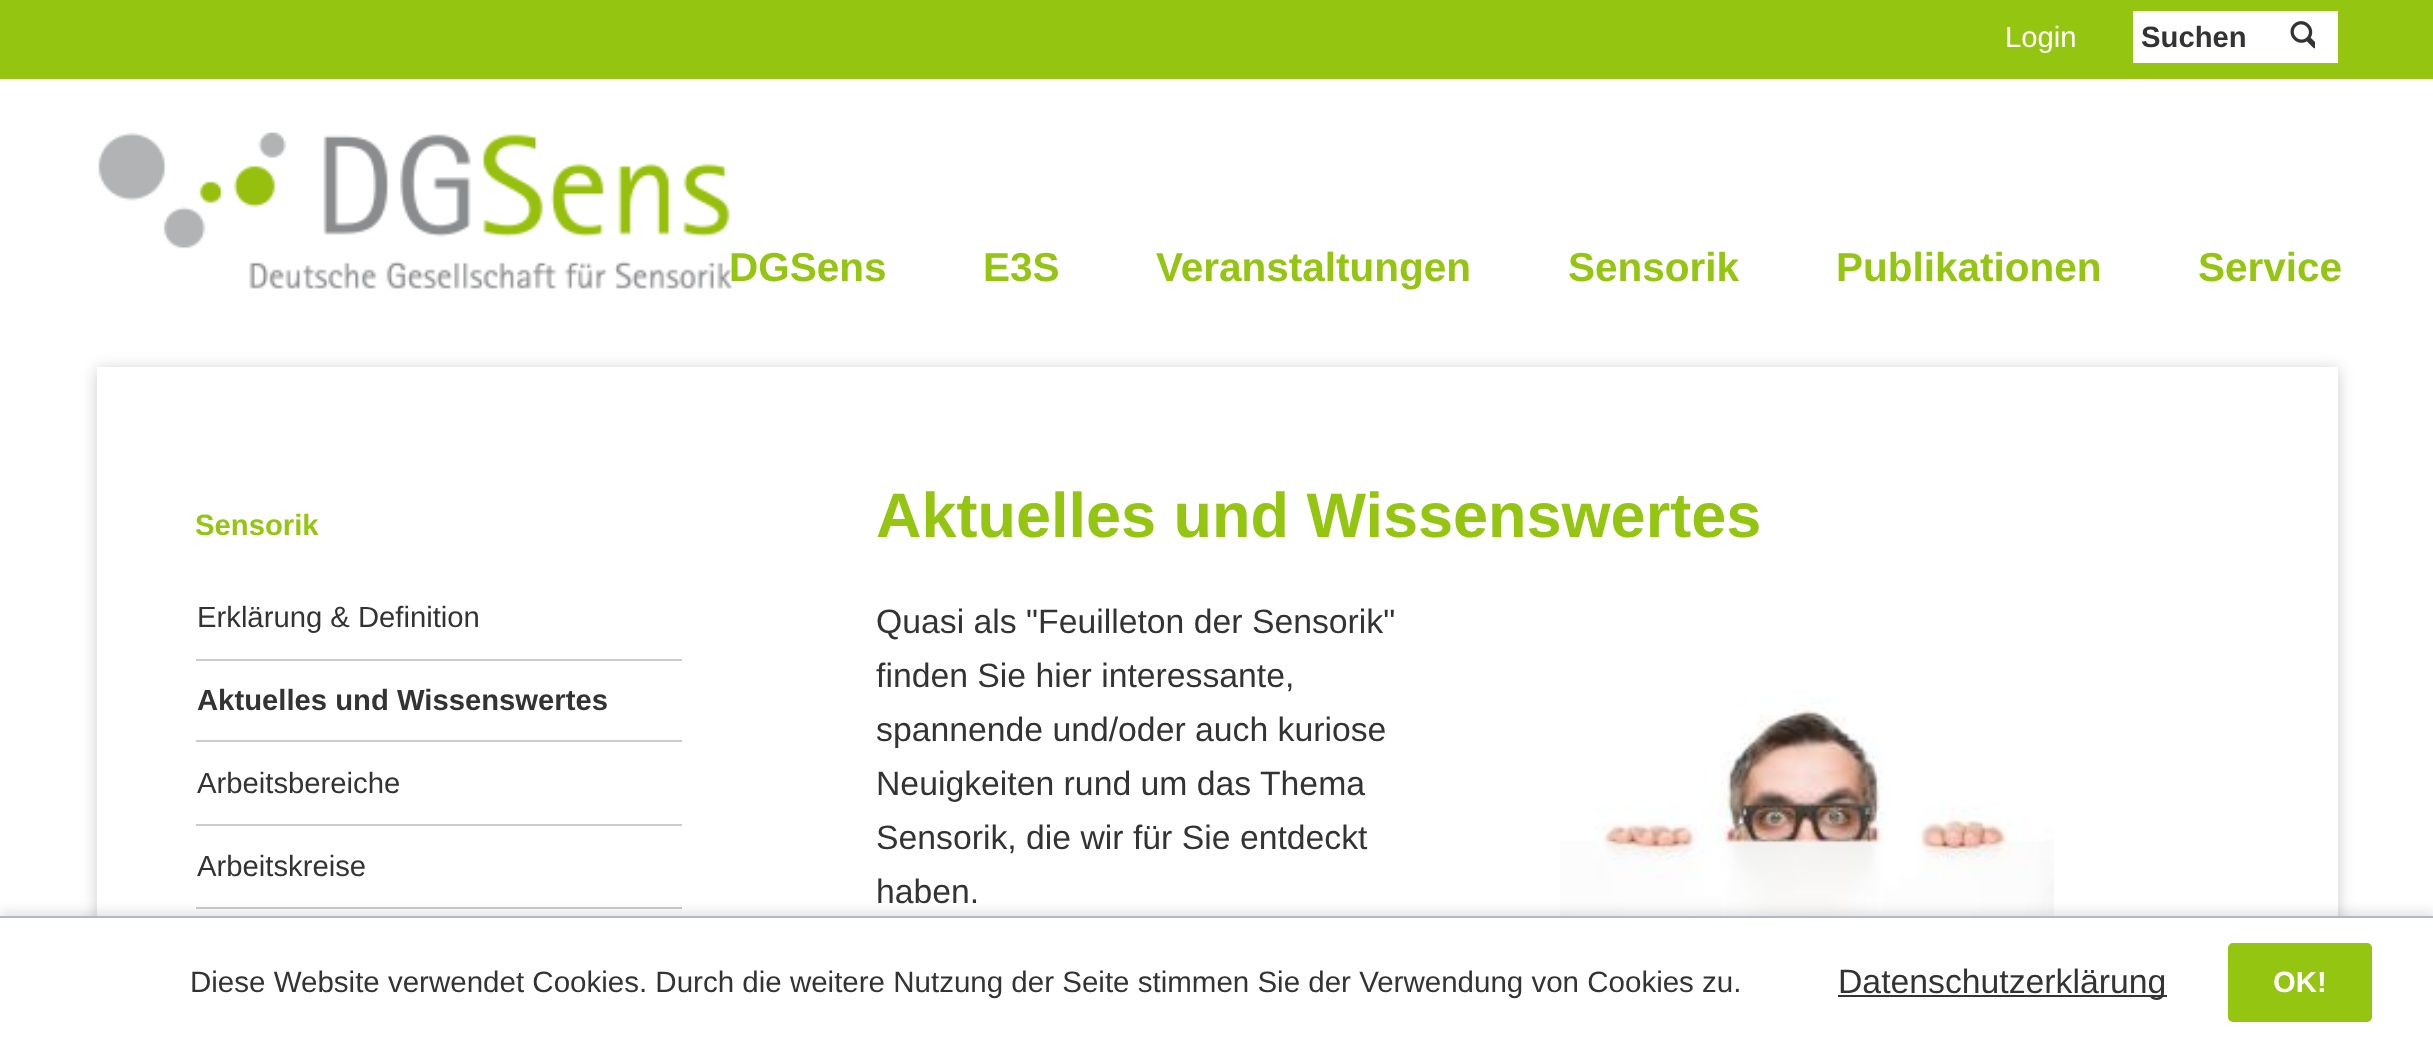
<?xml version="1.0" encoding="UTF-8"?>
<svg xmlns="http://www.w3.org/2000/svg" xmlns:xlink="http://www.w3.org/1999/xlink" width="2433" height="1046">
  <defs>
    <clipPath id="clip1"><path d="M 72 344 h 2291 v 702 h -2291 z m 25 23 h 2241 v 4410 h -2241 z" clip-rule="evenodd" /></clipPath>
  </defs>
  <rect width="100%" height="100%" fill="#ffffff" />
  <rect width="2433" height="79" fill="#94c511" />
  <rect x="2133" y="11" width="205" height="52" fill="#ffffff" />
  <image x="2290" y="21" width="25" height="28" xlink:href="image1.png" />
  <image x="98" y="132" width="634" height="157" xlink:href="image2.png" />
  <g clip-path="url(#clip1)">
    <rect x="97" y="369" width="2241" height="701" fill="#000000" fill-opacity="0.2" filter="blur(8px)" />
  </g>
  <rect x="2337" y="375" width="1" height="541" fill="#ffffff" fill-opacity="0.5" />
  <rect x="196" y="659" width="486" height="2" fill="#cccccd" />
  <rect x="196" y="740" width="486" height="2" fill="#cccccd" />
  <rect x="196" y="824" width="486" height="2" fill="#cccccd" />
  <rect x="196" y="907" width="486" height="2" fill="#cccccd" />
  <image x="1560" y="698" width="494" height="218" xlink:href="image3.png" />
  <rect y="911" width="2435" height="131" fill="#000000" fill-opacity="0.1" filter="blur(5.5px)" />
  <rect y="918" width="2433" height="128" fill="#ffffff" />
  <rect y="916" width="2433" height="2" fill="#b2b9c4" />
  <rect x="1838" y="995" width="329" height="2" fill="#333333" />
  <rect x="2228" y="943" width="144" height="79" rx="5" fill="#94c511" />
  <text x="2005" y="47" style="font-family: Liberation Sans; font-size: 29.25px; fill: #ffffff">Login</text>
  <text x="2141" y="47" style="font-family: Liberation Sans; font-size: 29.25px; font-weight: bold; fill: #333333">Suchen</text>
  <text x="729" y="281" style="font-family: Liberation Sans; font-size: 40.5px; font-weight: bold; fill: #94c511">DGSens</text>
  <text x="983" y="281" style="font-family: Liberation Sans; font-size: 40.5px; font-weight: bold; fill: #94c511">E3S</text>
  <text x="1156" y="281" style="font-family: Liberation Sans; font-size: 40.5px; font-weight: bold; fill: #94c511">Veranstaltungen</text>
  <text x="1568" y="281" style="font-family: Liberation Sans; font-size: 40.5px; font-weight: bold; fill: #94c511">Sensorik</text>
  <text x="1836" y="281" style="font-family: Liberation Sans; font-size: 40.5px; font-weight: bold; fill: #94c511">Publikationen</text>
  <text x="2198" y="281" style="font-family: Liberation Sans; font-size: 40.5px; font-weight: bold; fill: #94c511">Service</text>
  <text x="195" y="535" style="font-family: Liberation Sans; font-size: 29.25px; font-weight: bold; fill: #94c511">Sensorik</text>
  <text x="197" y="627" style="font-family: Liberation Sans; font-size: 29.25px; fill: #333333">Erklärung &amp; Definition</text>
  <text x="197" y="710" style="font-family: Liberation Sans; font-size: 29.25px; font-weight: bold; fill: #333333">Aktuelles und Wissenswertes</text>
  <text x="197" y="793" style="font-family: Liberation Sans; font-size: 29.25px; fill: #333333">Arbeitsbereiche</text>
  <text x="197" y="876" style="font-family: Liberation Sans; font-size: 29.25px; fill: #333333">Arbeitskreise</text>
  <text x="876" y="537" style="font-family: Liberation Sans; font-size: 63px; font-weight: bold; fill: #94c511">Aktuelles und Wissenswertes</text>
  <text x="876" y="633" style="font-family: Liberation Sans; font-size: 33.75px; fill: #333333">Quasi als "Feuilleton der Sensorik"</text>
  <text x="876" y="687" style="font-family: Liberation Sans; font-size: 33.75px; fill: #333333">finden Sie hier interessante,</text>
  <text x="876" y="741" style="font-family: Liberation Sans; font-size: 33.75px; fill: #333333">spannende und/oder auch kuriose</text>
  <text x="876" y="795" style="font-family: Liberation Sans; font-size: 33.75px; fill: #333333">Neuigkeiten rund um das Thema</text>
  <text x="876" y="849" style="font-family: Liberation Sans; font-size: 33.75px; fill: #333333">Sensorik, die wir für Sie entdeckt</text>
  <text x="876" y="903" style="font-family: Liberation Sans; font-size: 33.75px; fill: #333333">haben.</text>
  <text x="190" y="992" style="font-family: Liberation Sans; font-size: 29.53px; fill: #333333">Diese Website verwendet Cookies. Durch die weitere Nutzung der Seite stimmen Sie der Verwendung von Cookies zu.</text>
  <text x="1838" y="993" style="font-family: Liberation Sans; font-size: 33.75px; fill: #333333">Datenschutzerklärung</text>
  <text x="2273" y="992" style="font-family: Liberation Sans; font-size: 29.25px; font-weight: bold; fill: #ffffff">OK!</text>
</svg>
